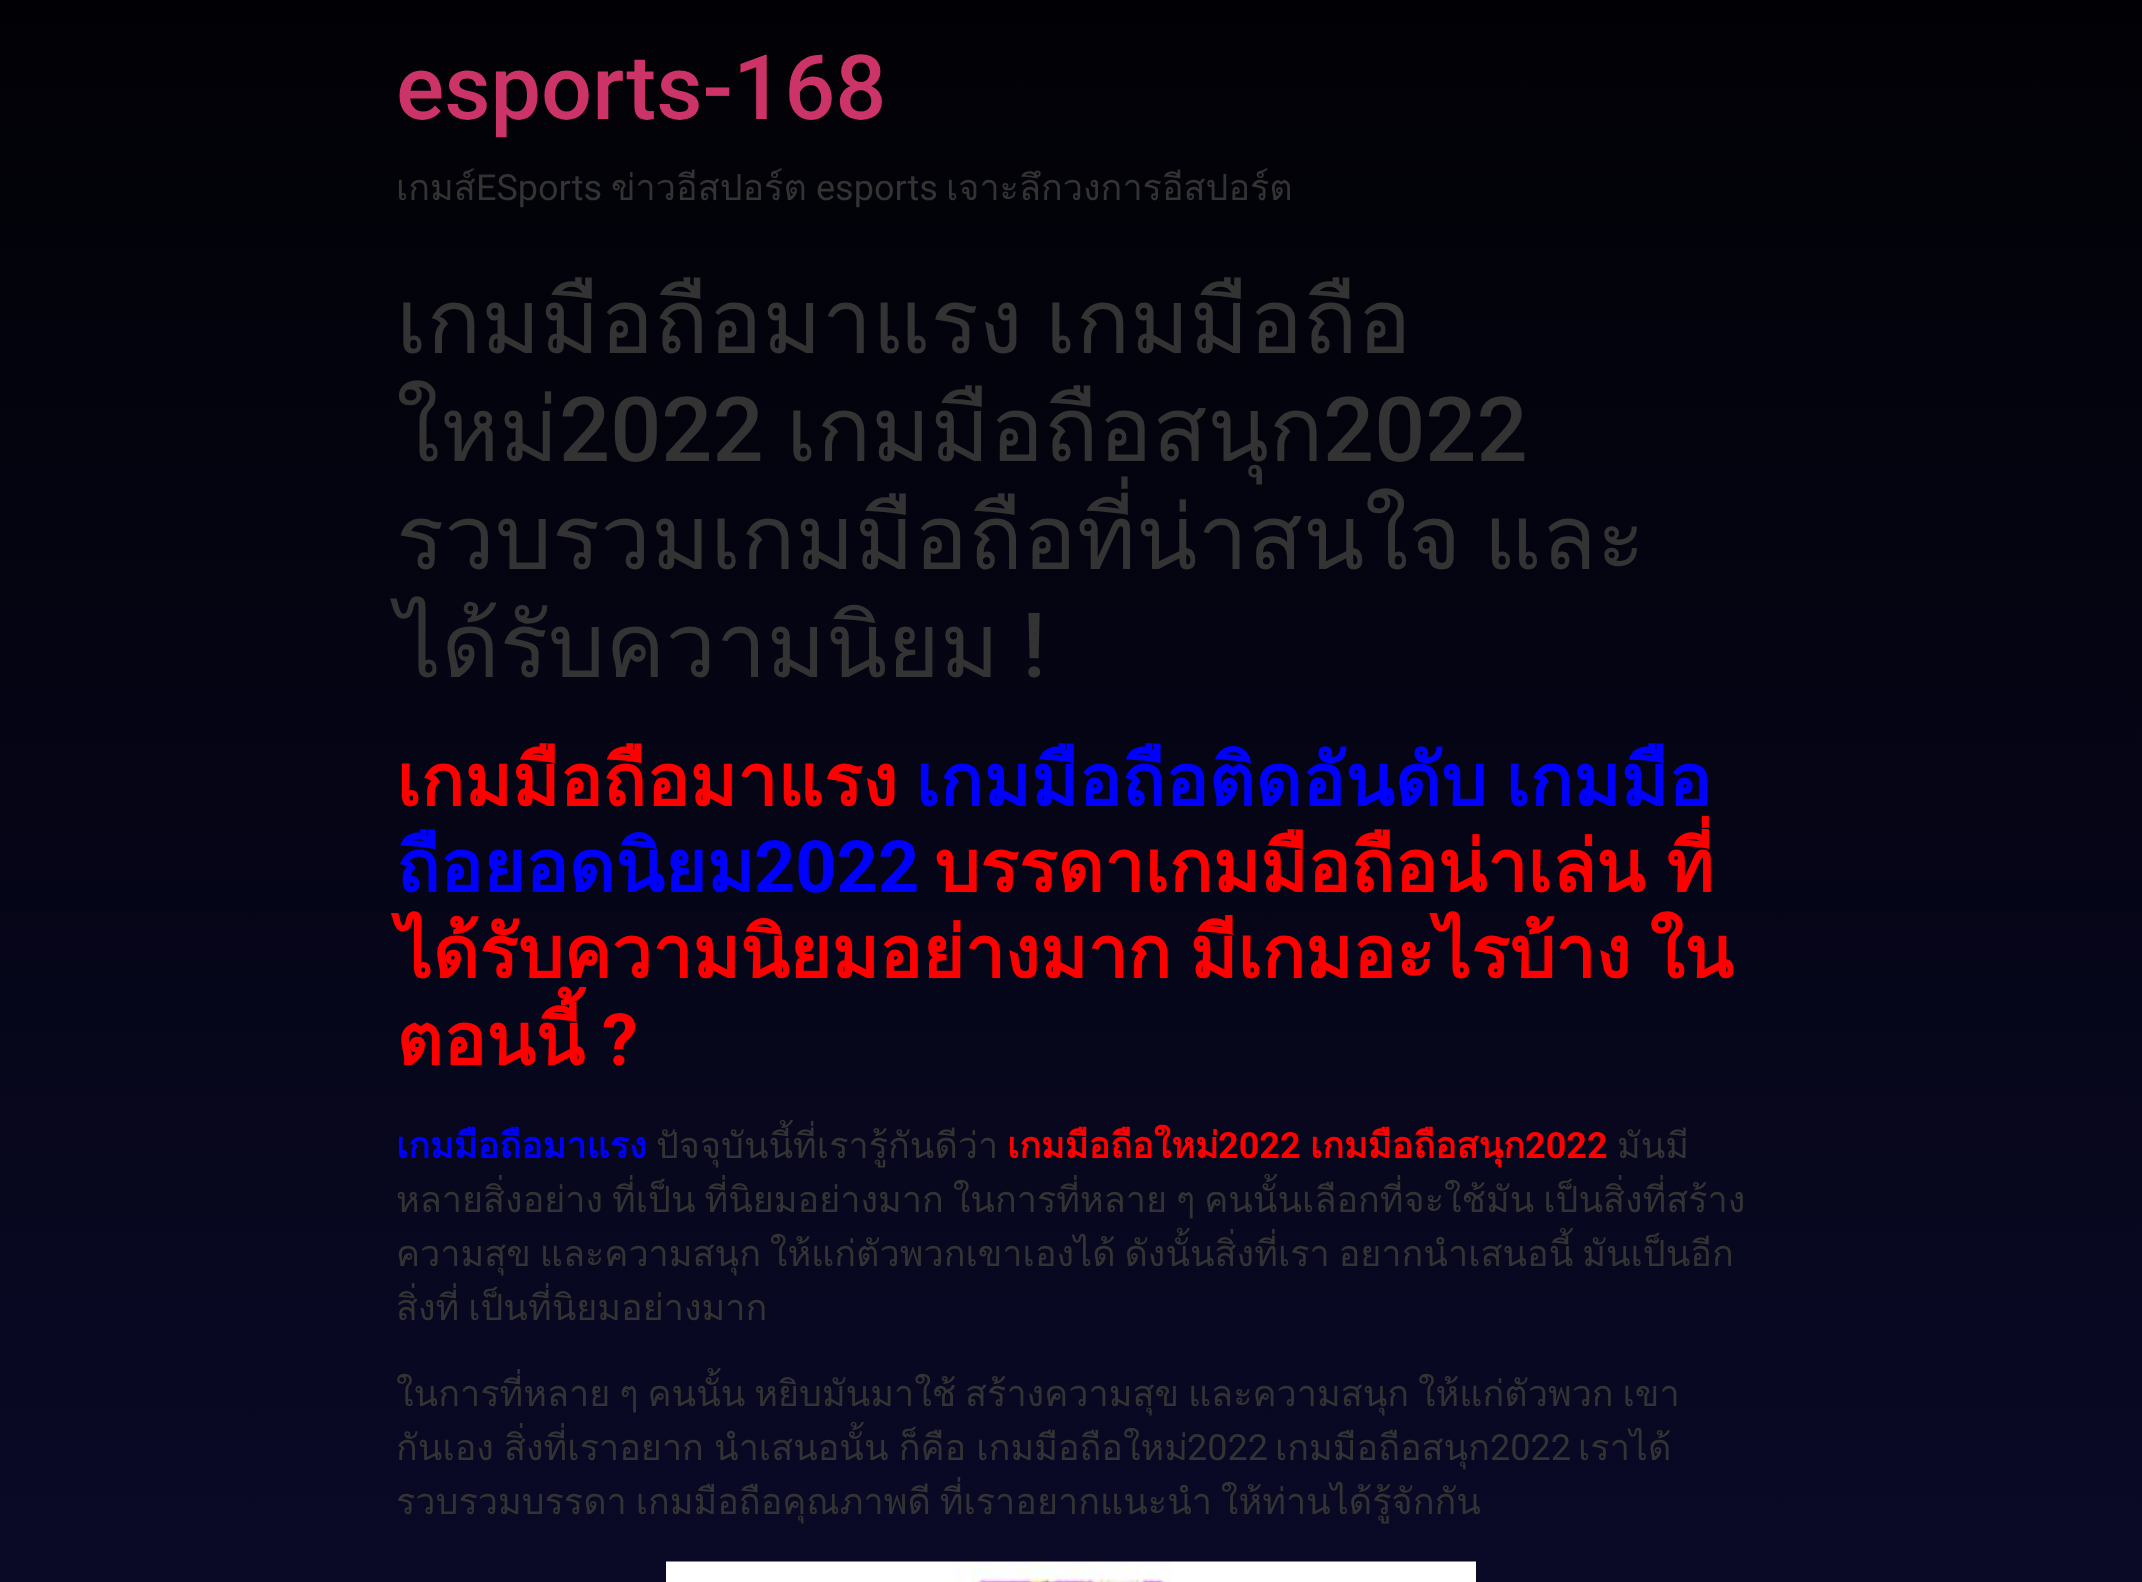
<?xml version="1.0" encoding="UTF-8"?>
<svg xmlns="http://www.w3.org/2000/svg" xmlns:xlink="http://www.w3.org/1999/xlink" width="2142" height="1582">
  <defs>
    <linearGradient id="g1" gradientUnits="userSpaceOnUse" x1="1071" y1="0" x2="1071" y2="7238"><stop offset="0" stop-color="#010105" /><stop offset="1" stop-color="#2826a0" /></linearGradient>
  </defs>
  <rect width="100%" height="100%" fill="#ffffff" />
  <rect width="2142" height="1582" fill="url(#g1)" />
  <image x="666" y="1561" width="810" height="21" xlink:href="image1.png" />
  <text x="396" y="119" style="font-family: Roboto; font-size: 90px; font-weight: 500; fill: #cc3366">esports-168</text>
  <text x="396" y="200" style="font-family: Loma; font-size: 36px; fill: #333333">เกมส์</text>
  <text x="476" y="200" style="font-family: Roboto; font-size: 36px; fill: #333333">ESports</text>
  <text x="611" y="200" style="font-family: Loma; font-size: 36px; fill: #333333">ข่าวอีสปอร์ต</text>
  <text x="816" y="200" style="font-family: Roboto; font-size: 36px; fill: #333333">esports</text>
  <text x="946" y="200" style="font-family: Loma; font-size: 36px; fill: #333333">เจาะลึกวงการอีสปอร์ต</text>
  <text x="396" y="353" word-spacing="-8" style="font-family: Loma; font-size: 90px; fill: #333333">เกมมือถือมาแรง เกมมือถือ</text>
  <text x="396" y="461" style="font-family: Loma; font-size: 90px; fill: #333333">ใหม่</text>
  <text x="559" y="461" style="font-family: Roboto; font-size: 90px; font-weight: 500; fill: #333333">2022</text>
  <text x="786" y="461" style="font-family: Loma; font-size: 90px; fill: #333333">เกมมือถือสนุก</text>
  <text x="1323" y="461" style="font-family: Roboto; font-size: 90px; font-weight: 500; fill: #333333">2022</text>
  <text x="396" y="569" word-spacing="-8" style="font-family: Loma; font-size: 90px; fill: #333333">รวบรวมเกมมือถือที่น่าสนใจ และ</text>
  <text x="396" y="677" style="font-family: Loma; font-size: 90px; fill: #333333">ได้รับความนิยม</text>
  <text x="1022" y="677" style="font-family: Roboto; font-size: 90px; font-weight: 500; fill: #333333">!</text>
  <text x="396" y="806" style="font-family: Loma; font-size: 72px; font-weight: bold; fill: #ff0000">เกมมือถือมาแรง</text>
  <text x="915" y="806" word-spacing="-6" style="font-family: Loma; font-size: 72px; font-weight: bold; fill: #0000ff">เกมมือถือติดอันดับ เกมมือ</text>
  <text x="396" y="892" style="font-family: Loma; font-size: 72px; font-weight: bold; fill: #0000ff">ถือยอดนิยม</text>
  <text x="754" y="892" style="font-family: Roboto; font-size: 72px; font-weight: bold; fill: #0000ff">2022</text>
  <text x="934" y="892" word-spacing="-3.25" style="font-family: Loma; font-size: 72px; font-weight: bold; fill: #ff0000">บรรดาเกมมือถือน่าเล่น ที่</text>
  <text x="396" y="978" word-spacing="-6" style="font-family: Loma; font-size: 72px; font-weight: bold; fill: #ff0000">ได้รับความนิยมอย่างมาก มีเกมอะไรบ้าง ใน</text>
  <text x="396" y="1065" style="font-family: Loma; font-size: 72px; font-weight: bold; fill: #ff0000">ตอนนี้</text>
  <text x="602" y="1065" style="font-family: Roboto; font-size: 72px; font-weight: bold; fill: #ff0000">?</text>
  <text x="396" y="1158" style="font-family: Loma; font-size: 36px; font-weight: bold; fill: #0000ff">เกมมือถือมาแรง</text>
  <text x="656" y="1158" style="font-family: Loma; font-size: 36px; fill: #333333">ปัจจุบันนี้ที่เรารู้กันดีว่า</text>
  <text x="1007" y="1158" style="font-family: Loma; font-size: 36px; font-weight: bold; fill: #ff0000">เกมมือถือใหม่</text>
  <text x="1218" y="1158" style="font-family: Roboto; font-size: 36px; font-weight: bold; fill: #ff0000">2022</text>
  <text x="1310" y="1158" style="font-family: Loma; font-size: 36px; font-weight: bold; fill: #ff0000">เกมมือถือสนุก</text>
  <text x="1525" y="1158" style="font-family: Roboto; font-size: 36px; font-weight: bold; fill: #ff0000">2022</text>
  <text x="1617" y="1158" style="font-family: Loma; font-size: 36px; fill: #333333">มันมี</text>
  <text x="396" y="1212" word-spacing="-3.25" style="font-family: Loma; font-size: 36px; fill: #333333">หลายสิ่งอย่าง ที่เป็น ที่นิยมอย่างมาก ในการที่หลาย ๆ คนนั้นเลือกที่จะใช้มัน เป็นสิ่งที่สร้าง</text>
  <text x="396" y="1266" word-spacing="-3.25" style="font-family: Loma; font-size: 36px; fill: #333333">ความสุข และความสนุก ให้แก่ตัวพวกเขาเองได้ ดังนั้นสิ่งที่เรา อยากนำเสนอนี้ มันเป็นอีก</text>
  <text x="396" y="1320" word-spacing="-3.25" style="font-family: Loma; font-size: 36px; fill: #333333">สิ่งที่ เป็นที่นิยมอย่างมาก</text>
  <text x="396" y="1406" word-spacing="-3.25" style="font-family: Loma; font-size: 36px; fill: #333333">ในการที่หลาย ๆ คนนั้น หยิบมันมาใช้ สร้างความสุข และความสนุก ให้แก่ตัวพวก เขา</text>
  <text x="396" y="1460" word-spacing="-2" style="font-family: Loma; font-size: 36px; fill: #333333">กันเอง สิ่งที่เราอยาก นำเสนอนั้น ก็คือ เกมมือถือใหม่</text>
  <text x="1187" y="1460" style="font-family: Roboto; font-size: 36px; fill: #333333">2022</text>
  <text x="1275" y="1460" style="font-family: Loma; font-size: 36px; fill: #333333">เกมมือถือสนุก</text>
  <text x="1490" y="1460" style="font-family: Roboto; font-size: 36px; fill: #333333">2022</text>
  <text x="1578" y="1460" style="font-family: Loma; font-size: 36px; fill: #333333">เราได้</text>
  <text x="396" y="1514" word-spacing="-3.25" style="font-family: Loma; font-size: 36px; fill: #333333">รวบรวมบรรดา เกมมือถือคุณภาพดี ที่เราอยากแนะนำ ให้ท่านได้รู้จักกัน</text>
</svg>
